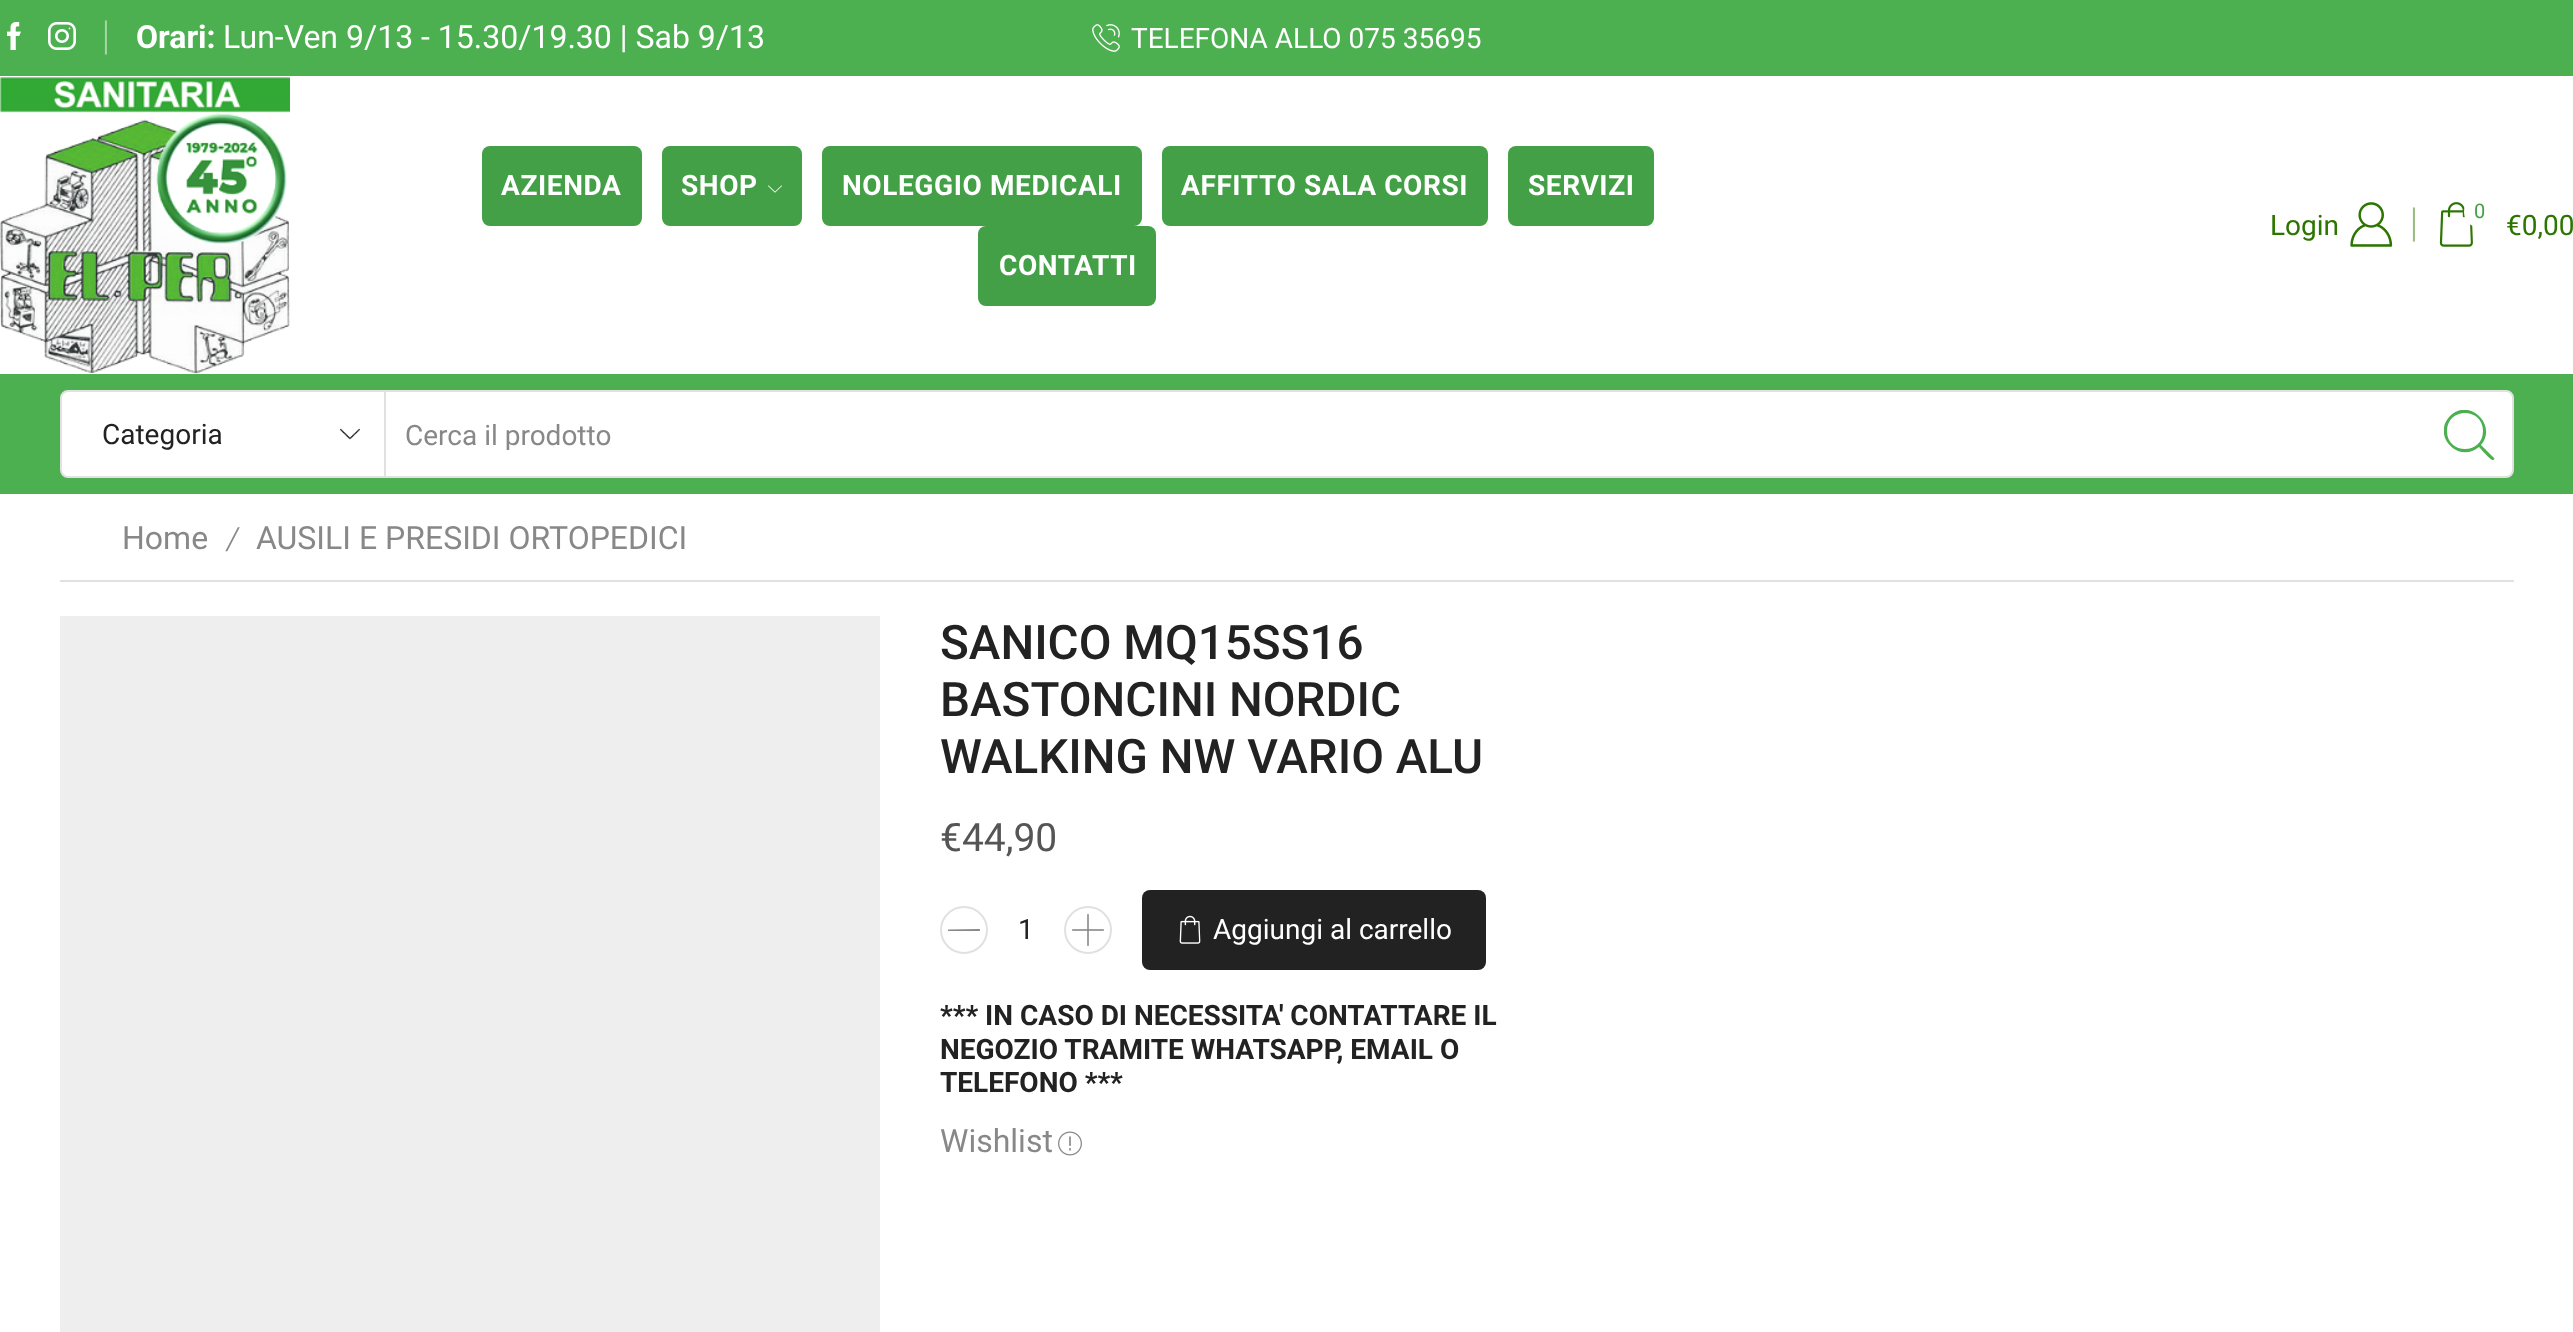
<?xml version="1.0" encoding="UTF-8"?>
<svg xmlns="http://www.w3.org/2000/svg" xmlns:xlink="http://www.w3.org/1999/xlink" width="2573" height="1332">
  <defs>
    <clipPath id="clip1"><rect x="2444" y="410" width="52" height="50" /></clipPath>
    <clipPath id="clip2"><rect x="406" y="418" width="2002" height="32" /></clipPath>
  </defs>
  <rect width="100%" height="100%" fill="#ffffff" />
  <rect width="2573" height="76" fill="#4caf50" />
  <image x="7" y="22" width="14" height="28" xlink:href="image1.png" />
  <image x="48" y="22" width="28" height="28" xlink:href="image2.png" />
  <image x="1092" y="24" width="28" height="28" xlink:href="image3.png" />
  <image x="0" y="77" width="290" height="297" xlink:href="image4.png" />
  <rect x="482" y="146" width="160" height="80" rx="8" fill="#43a047" />
  <rect x="662" y="146" width="140" height="80" rx="8" fill="#43a047" />
  <image x="768" y="185" width="14" height="8" xlink:href="image5.png" />
  <rect x="822" y="146" width="320" height="80" rx="8" fill="#43a047" />
  <rect x="1162" y="146" width="326" height="80" rx="8" fill="#43a047" />
  <rect x="1508" y="146" width="146" height="80" rx="8" fill="#43a047" />
  <rect x="978" y="226" width="178" height="80" rx="8" fill="#43a047" />
  <image x="2350" y="202" width="43" height="45" xlink:href="image6.png" />
  <image x="2439" y="202" width="34" height="45" xlink:href="image7.png" />
  <circle cx="2480" cy="212" r="16" fill="#ffffff" />
  <rect y="374" width="2573" height="120" fill="#4caf50" />
  <rect x="61" y="391" width="2452" height="86" rx="7" fill="#ffffff" stroke="#e1e1e1" stroke-width="2" />
  <image x="340" y="428" width="20" height="12" xlink:href="image8.png" />
  <rect x="384" y="392" width="2" height="84" fill="#e1e1e1" />
  <g clip-path="url(#clip1)">
    <path d="M 2494 458 l -13 -13 c 17 -20 -12 -48 -31 -29 c -19 20 9 48 29 31 c 2 2 12 14 14 13 c 1 0 2 -1 1 -2 z m -11 -27 c 0 24 -36 24 -36 0 c 0 -24 36 -24 36 0 z" fill="#4caf50" />
  </g>
  <rect x="60" y="580" width="2454" height="2" fill="#e1e1e1" />
  <rect x="60" y="616" width="820" height="716" fill="#eeeeee" />
  <circle cx="964" cy="930" r="23" fill="none" stroke="#e1e1e1" stroke-width="2" />
  <path d="M 979.5 929 l -31 0.5 c -1 0 -0.5 1.5 0 1.5 h 31 l 0.5 -0.5 c 0 -0.5 0 -1.5 -0.5 -1.5 z" fill="#888888" />
  <circle cx="1088" cy="930" r="23" fill="none" stroke="#e1e1e1" stroke-width="2" />
  <image x="1072" y="914" width="32" height="32" xlink:href="image9.png" />
  <rect x="1142" y="890" width="344" height="80" rx="8" fill="#222222" />
  <image x="1179" y="915" width="22" height="29" xlink:href="image10.png" />
  <image x="1058" y="1131" width="24" height="25" xlink:href="image11.png" />
  <text x="96" y="46" style="font-family: Liberation Serif; font-size: 28px; fill: #a6d7a8">│</text>
  <text x="136" y="48" style="font-family: Roboto; font-size: 32px; font-weight: bold; fill: #ffffff">Orari:</text>
  <text x="223" y="48" style="font-family: Roboto; font-size: 32px; fill: #ffffff">Lun-Ven 9/13 - 15.30/19.30 | Sab 9/13</text>
  <text x="1131" y="48" style="font-family: Roboto; font-size: 28px; fill: #ffffff">TELEFONA ALLO 075 35695</text>
  <text x="501" y="195" style="font-family: Roboto; font-size: 28px; font-weight: bold; letter-spacing: 0.6px; fill: #ffffff">AZIENDA</text>
  <text x="681" y="195" style="font-family: Roboto; font-size: 28px; font-weight: bold; letter-spacing: 0.6px; fill: #ffffff">SHOP</text>
  <text x="842" y="195" style="font-family: Roboto; font-size: 28px; font-weight: bold; letter-spacing: 0.6px; fill: #ffffff">NOLEGGIO MEDICALI</text>
  <text x="1181" y="195" style="font-family: Roboto; font-size: 28px; font-weight: bold; letter-spacing: 0.6px; fill: #ffffff">AFFITTO SALA CORSI</text>
  <text x="1528" y="195" style="font-family: Roboto; font-size: 28px; font-weight: bold; letter-spacing: 0.6px; fill: #ffffff">SERVIZI</text>
  <text x="999" y="275" style="font-family: Roboto; font-size: 28px; font-weight: bold; letter-spacing: 0.6px; fill: #ffffff">CONTATTI</text>
  <text x="2270" y="235" style="font-family: Roboto; font-size: 28px; fill: #2c7500">Login</text>
  <text x="2404" y="233" style="font-family: Liberation Serif; font-size: 28px; fill: #96ba80">│</text>
  <text x="2474" y="218" style="font-family: Roboto; font-size: 20px; fill: #43a047">0</text>
  <text x="2506" y="235" style="font-family: Roboto; font-size: 28px; fill: #2c7500">€0,00</text>
  <text x="102" y="444" style="font-family: Roboto; font-size: 28px; fill: #222222">Categoria</text>
  <g clip-path="url(#clip2)">
    <text x="405" y="445" style="font-family: Roboto; font-size: 28px; fill: #888888">Cerca il prodotto</text>
  </g>
  <text x="122" y="549" style="font-family: Roboto; font-size: 32px; fill: #888888">Home</text>
  <text x="227" y="551" style="font-family: Liberation Serif; font-size: 36px; font-style: italic; fill: #888888">/</text>
  <text x="256" y="549" style="font-family: Roboto; font-size: 32px; fill: #888888">AUSILI E PRESIDI ORTOPEDICI</text>
  <text x="940" y="659" style="font-family: Roboto; font-size: 47.6px; font-weight: 500; fill: #222222">SANICO MQ15SS16</text>
  <text x="940" y="716" style="font-family: Roboto; font-size: 47.6px; font-weight: 500; fill: #222222">BASTONCINI NORDIC</text>
  <text x="940" y="773" style="font-family: Roboto; font-size: 47.6px; font-weight: 500; fill: #222222">WALKING NW VARIO ALU</text>
  <text x="940" y="851" style="font-family: Roboto; font-size: 39px; fill: #555555">€44,90</text>
  <text x="1018" y="939" style="font-family: Roboto; font-size: 28px; fill: #222222">1</text>
  <text x="1213" y="939" style="font-family: Roboto; font-size: 28px; fill: #ffffff">Aggiungi al carrello</text>
  <text x="940" y="1025" style="font-family: Roboto; font-size: 28px; font-weight: bold; fill: #222222">*** IN CASO DI NECESSITA' CONTATTARE IL</text>
  <text x="940" y="1059" style="font-family: Roboto; font-size: 28px; font-weight: bold; fill: #222222">NEGOZIO TRAMITE WHATSAPP, EMAIL O</text>
  <text x="940" y="1092" style="font-family: Roboto; font-size: 28px; font-weight: bold; fill: #222222">TELEFONO ***</text>
  <text x="940" y="1152" style="font-family: Roboto; font-size: 32px; fill: #888888">Wishlist</text>
</svg>
